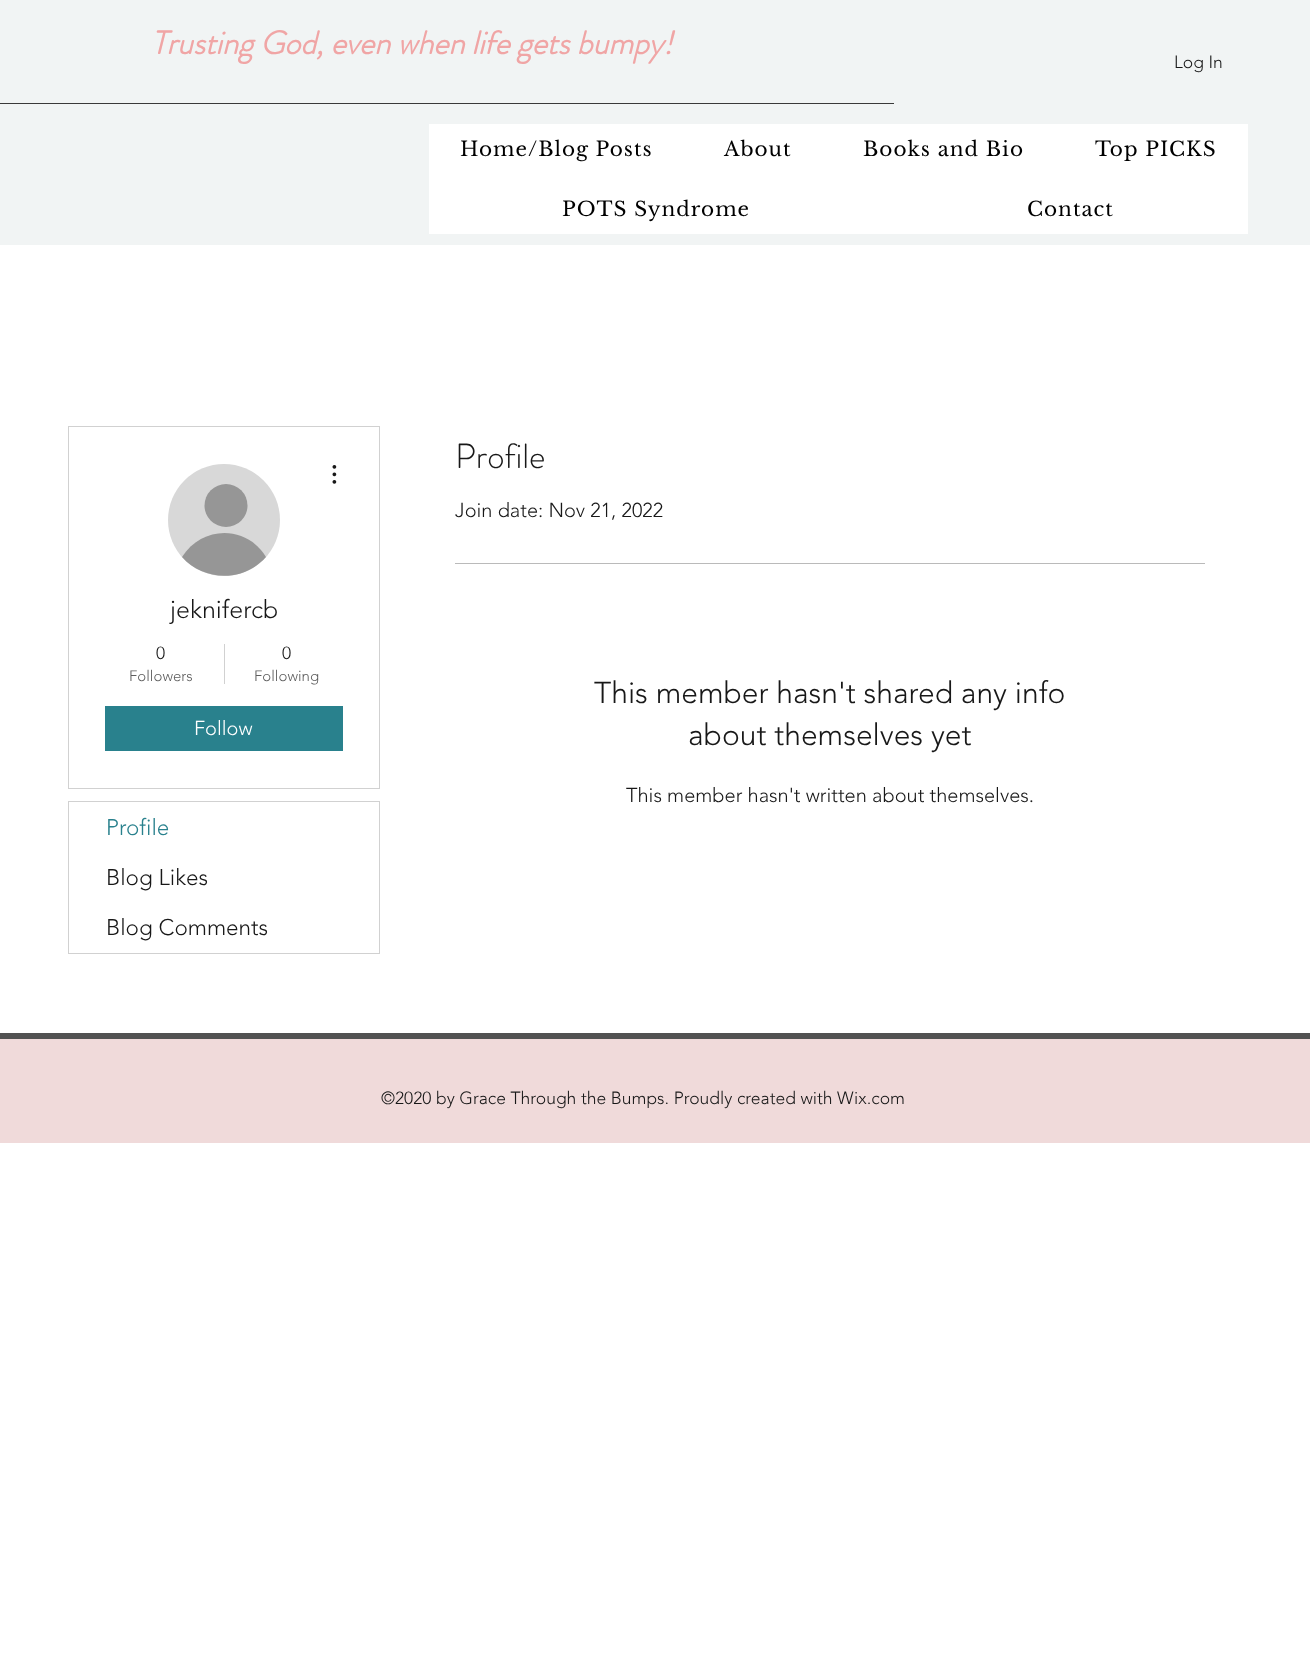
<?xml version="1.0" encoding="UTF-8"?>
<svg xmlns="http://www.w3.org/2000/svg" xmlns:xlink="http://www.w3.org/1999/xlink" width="1310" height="1671">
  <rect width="100%" height="100%" fill="#ffffff" />
  <rect width="1310" height="245" fill="#f1f4f4" />
  <rect x="429" y="124" width="819" height="110" fill="#ffffff" />
  <rect y="103" width="894" height="1" fill="#393939" />
  <rect x="68.5" y="426.5" width="311" height="362" fill="none" stroke="#d1d1d1" />
  <circle cx="224" cy="520" r="56" fill="#d8d8d8" />
  <circle cx="226" cy="505.5" r="21.5" fill="#969696" />
  <path d="M 266 557 c -22 25 -62 25 -84 0 c 20 -32 65 -32 84 0 z" fill="#969696" />
  <image x="332" y="465" width="5" height="19" xlink:href="image1.png" />
  <rect x="224" y="644" width="1" height="40" fill="#d1d1d1" />
  <rect x="105" y="706" width="238" height="45" fill="#29818d" />
  <rect x="68.5" y="801.5" width="311" height="152" fill="none" stroke="#d1d1d1" />
  <rect x="455" y="563" width="750" height="1" fill="#bababa" />
  <rect y="1039" width="1310" height="104" fill="#f0dada" />
  <rect y="1033" width="1310" height="6" fill="#525252" />
  <text x="151" y="54" style="font-family: 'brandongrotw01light'; font-size: 32.5px; font-weight: bold; font-style: italic; fill: #f0a5a5">Trusting God, even when life gets bumpy!</text>
  <text x="460" y="156" style="font-family: Libre Baskerville; font-size: 20px; letter-spacing: 1px; fill: #000000">Home/Blog Posts</text>
  <text x="724" y="156" style="font-family: Libre Baskerville; font-size: 20px; letter-spacing: 1px; fill: #000000">About</text>
  <text x="863" y="156" style="font-family: Libre Baskerville; font-size: 20px; letter-spacing: 1px; fill: #000000">Books and Bio</text>
  <text x="1095" y="156" style="font-family: Libre Baskerville; font-size: 20px; letter-spacing: 1px; fill: #000000">Top PICKS</text>
  <text x="562" y="216" style="font-family: Libre Baskerville; font-size: 20px; letter-spacing: 1px; fill: #000000">POTS Syndrome</text>
  <text x="1027" y="216" style="font-family: Libre Baskerville; font-size: 20px; letter-spacing: 1px; fill: #000000">Contact</text>
  <text x="1174" y="68" style="font-family: 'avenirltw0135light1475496'; font-size: 17.5px; font-weight: 300; fill: #181818">Log In</text>
  <text x="170" y="618" style="font-family: 'avenirltw0135light1475496'; font-size: 25px; font-weight: 300; fill: #181818">jeknifercb</text>
  <text x="156" y="659" style="font-family: 'avenirltw0135light1475496'; font-size: 17.5px; font-weight: 300; fill: #181818">0</text>
  <text x="129" y="681" style="font-family: 'avenirltw0135light1475496'; font-size: 15px; font-weight: 300; fill: #5d5d5d">Followers</text>
  <text x="282" y="659" style="font-family: 'avenirltw0135light1475496'; font-size: 17.5px; font-weight: 300; fill: #181818">0</text>
  <text x="254" y="681" style="font-family: 'avenirltw0135light1475496'; font-size: 15px; font-weight: 300; fill: #5d5d5d">Following</text>
  <text x="194" y="735" style="font-family: 'avenirltw0135light1475496'; font-size: 20px; font-weight: 300; fill: #ffffff">Follow</text>
  <text x="106" y="835" style="font-family: 'avenirltw0135light1475496'; font-size: 22.5px; font-weight: 300; fill: #29818d">Profile</text>
  <text x="106" y="885" style="font-family: 'avenirltw0135light1475496'; font-size: 22.5px; font-weight: 300; fill: #181818">Blog Likes</text>
  <text x="106" y="935" style="font-family: 'avenirltw0135light1475496'; font-size: 22.5px; font-weight: 300; fill: #181818">Blog Comments</text>
  <text x="455" y="468" style="font-family: 'brandongrotw01light'; font-size: 35px; font-weight: 300; fill: #181818">Profile</text>
  <text x="455" y="517" style="font-family: 'avenirltw0135light1475496'; font-size: 20px; font-weight: 300; fill: #181818">Join date: Nov 21, 2022</text>
  <text x="594" y="703" style="font-family: 'avenirltw0135light1475496'; font-size: 30px; font-weight: 300; fill: #181818">This member hasn't shared any info</text>
  <text x="688" y="745" style="font-family: 'avenirltw0135light1475496'; font-size: 30px; font-weight: 300; fill: #181818">about themselves yet</text>
  <text x="626" y="802" style="font-family: 'avenirltw0135light1475496'; font-size: 20px; font-weight: 300; fill: #181818">This member hasn't written about themselves.</text>
  <text x="381" y="1104" style="font-family: 'avenirltw0135light1475496'; font-size: 17.5px; font-weight: 300; fill: #181818">©2020 by Grace Through the Bumps. Proudly created with Wix.com</text>
</svg>
